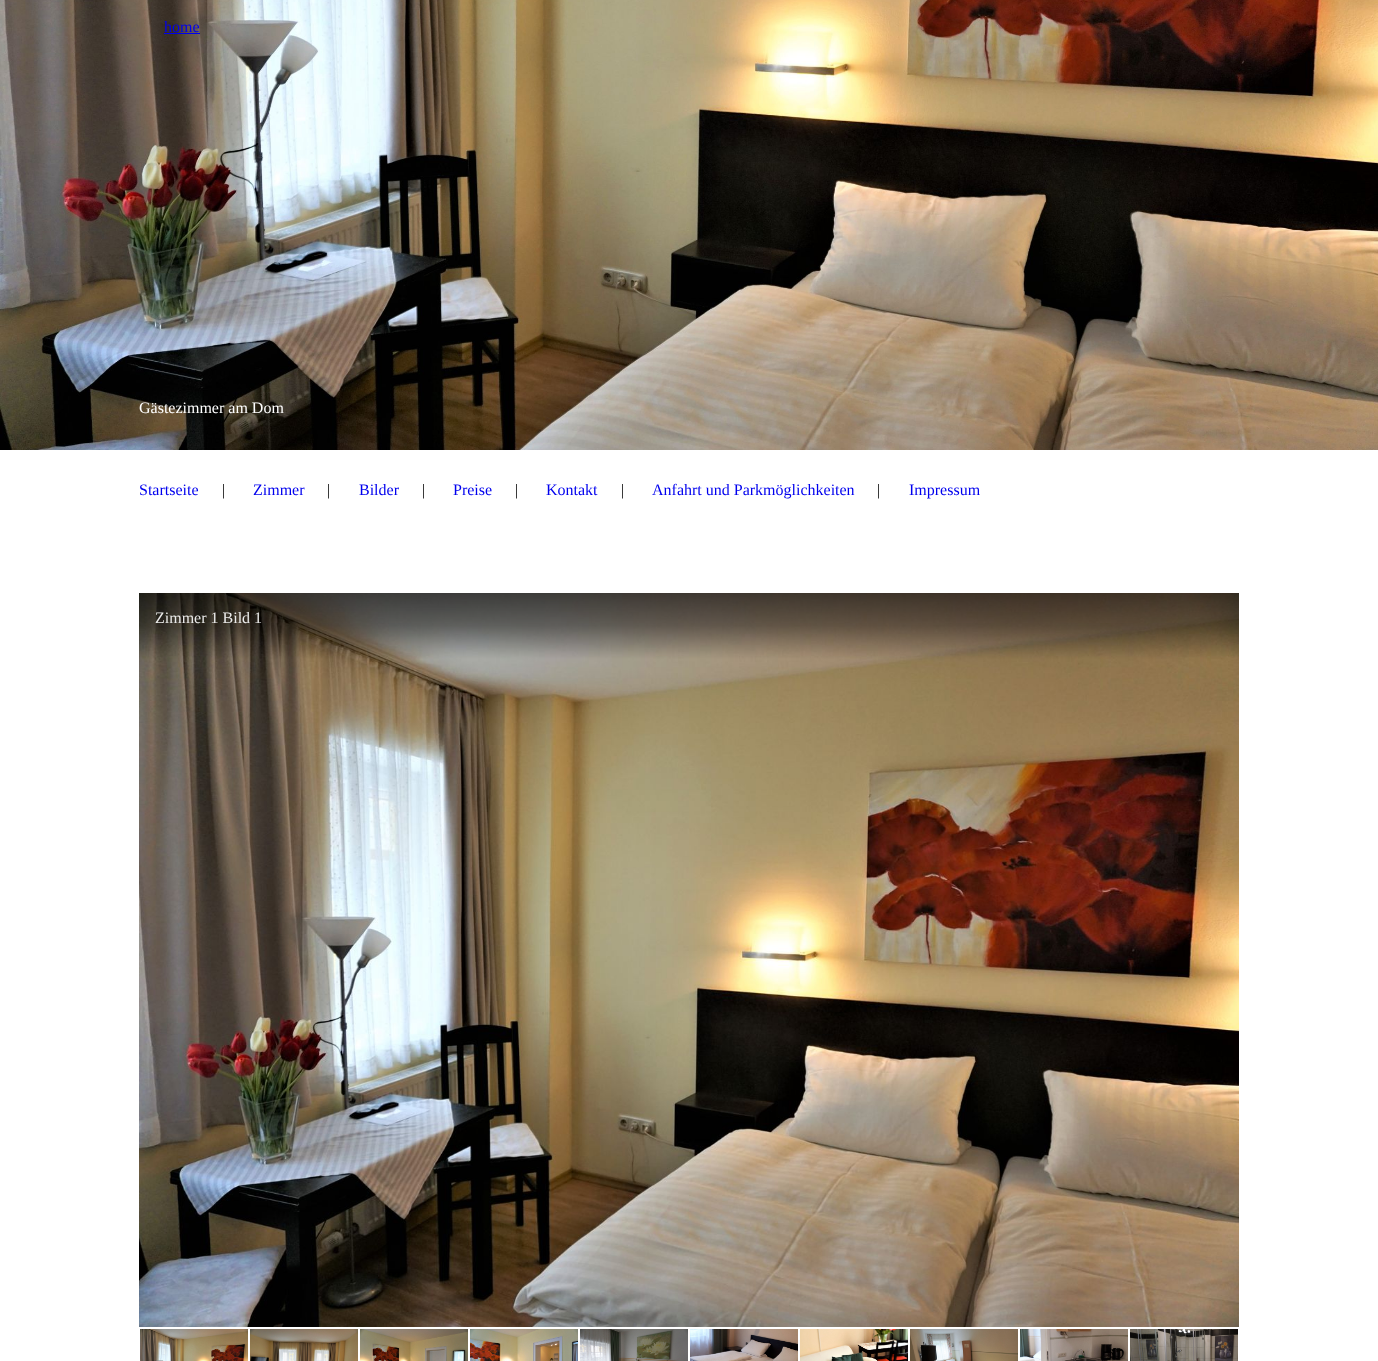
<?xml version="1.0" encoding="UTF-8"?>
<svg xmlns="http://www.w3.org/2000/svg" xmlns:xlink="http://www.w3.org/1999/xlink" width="1378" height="1361">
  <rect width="100%" height="100%" fill="#ffffff" />
  <image x="0" y="0" width="1378" height="450" xlink:href="image1.png" />
  <rect x="164" y="33" width="36" height="1" fill="#0000ee" />
  <image x="139" y="593" width="1100" height="734" xlink:href="image2.png" />
  <image x="140" y="1329" width="108" height="32" xlink:href="image3.png" />
  <image x="250" y="1329" width="108" height="32" xlink:href="image4.png" />
  <image x="360" y="1329" width="108" height="32" xlink:href="image5.png" />
  <image x="470" y="1329" width="108" height="32" xlink:href="image6.png" />
  <image x="580" y="1329" width="108" height="32" xlink:href="image7.png" />
  <image x="690" y="1329" width="108" height="32" xlink:href="image8.png" />
  <image x="800" y="1329" width="108" height="32" xlink:href="image9.png" />
  <image x="910" y="1329" width="108" height="32" xlink:href="image10.png" />
  <image x="1020" y="1329" width="108" height="32" xlink:href="image11.png" />
  <image x="1130" y="1329" width="108" height="32" xlink:href="image12.png" />
  <text x="164" y="32" style="font-family: Liberation Serif; font-size: 16px; fill: #0000ee">home</text>
  <text x="139" y="413" style="font-family: Liberation Serif; font-size: 16px; fill: #ffffff">Gästezimmer am Dom</text>
  <text x="139" y="495" style="font-family: Liberation Serif; font-size: 16px; fill: #0000ee">Startseite</text>
  <text x="222" y="495" style="font-family: Liberation Serif; font-size: 16px; fill: #000000">|</text>
  <text x="253" y="495" style="font-family: Liberation Serif; font-size: 16px; fill: #0000ee">Zimmer</text>
  <text x="327" y="495" style="font-family: Liberation Serif; font-size: 16px; fill: #000000">|</text>
  <text x="359" y="495" style="font-family: Liberation Serif; font-size: 16px; fill: #0000ee">Bilder</text>
  <text x="422" y="495" style="font-family: Liberation Serif; font-size: 16px; fill: #000000">|</text>
  <text x="453" y="495" style="font-family: Liberation Serif; font-size: 16px; fill: #0000ee">Preise</text>
  <text x="515" y="495" style="font-family: Liberation Serif; font-size: 16px; fill: #000000">|</text>
  <text x="546" y="495" style="font-family: Liberation Serif; font-size: 16px; fill: #0000ee">Kontakt</text>
  <text x="621" y="495" style="font-family: Liberation Serif; font-size: 16px; fill: #000000">|</text>
  <text x="652" y="495" style="font-family: Liberation Serif; font-size: 16px; fill: #0000ee">Anfahrt und Parkmöglichkeiten</text>
  <text x="877" y="495" style="font-family: Liberation Serif; font-size: 16px; fill: #000000">|</text>
  <text x="909" y="495" style="font-family: Liberation Serif; font-size: 16px; fill: #0000ee">Impressum</text>
  <text x="155" y="623" style="font-family: Liberation Serif; font-size: 16px; fill: #eaeae9">Zimmer 1 Bild 1</text>
</svg>
